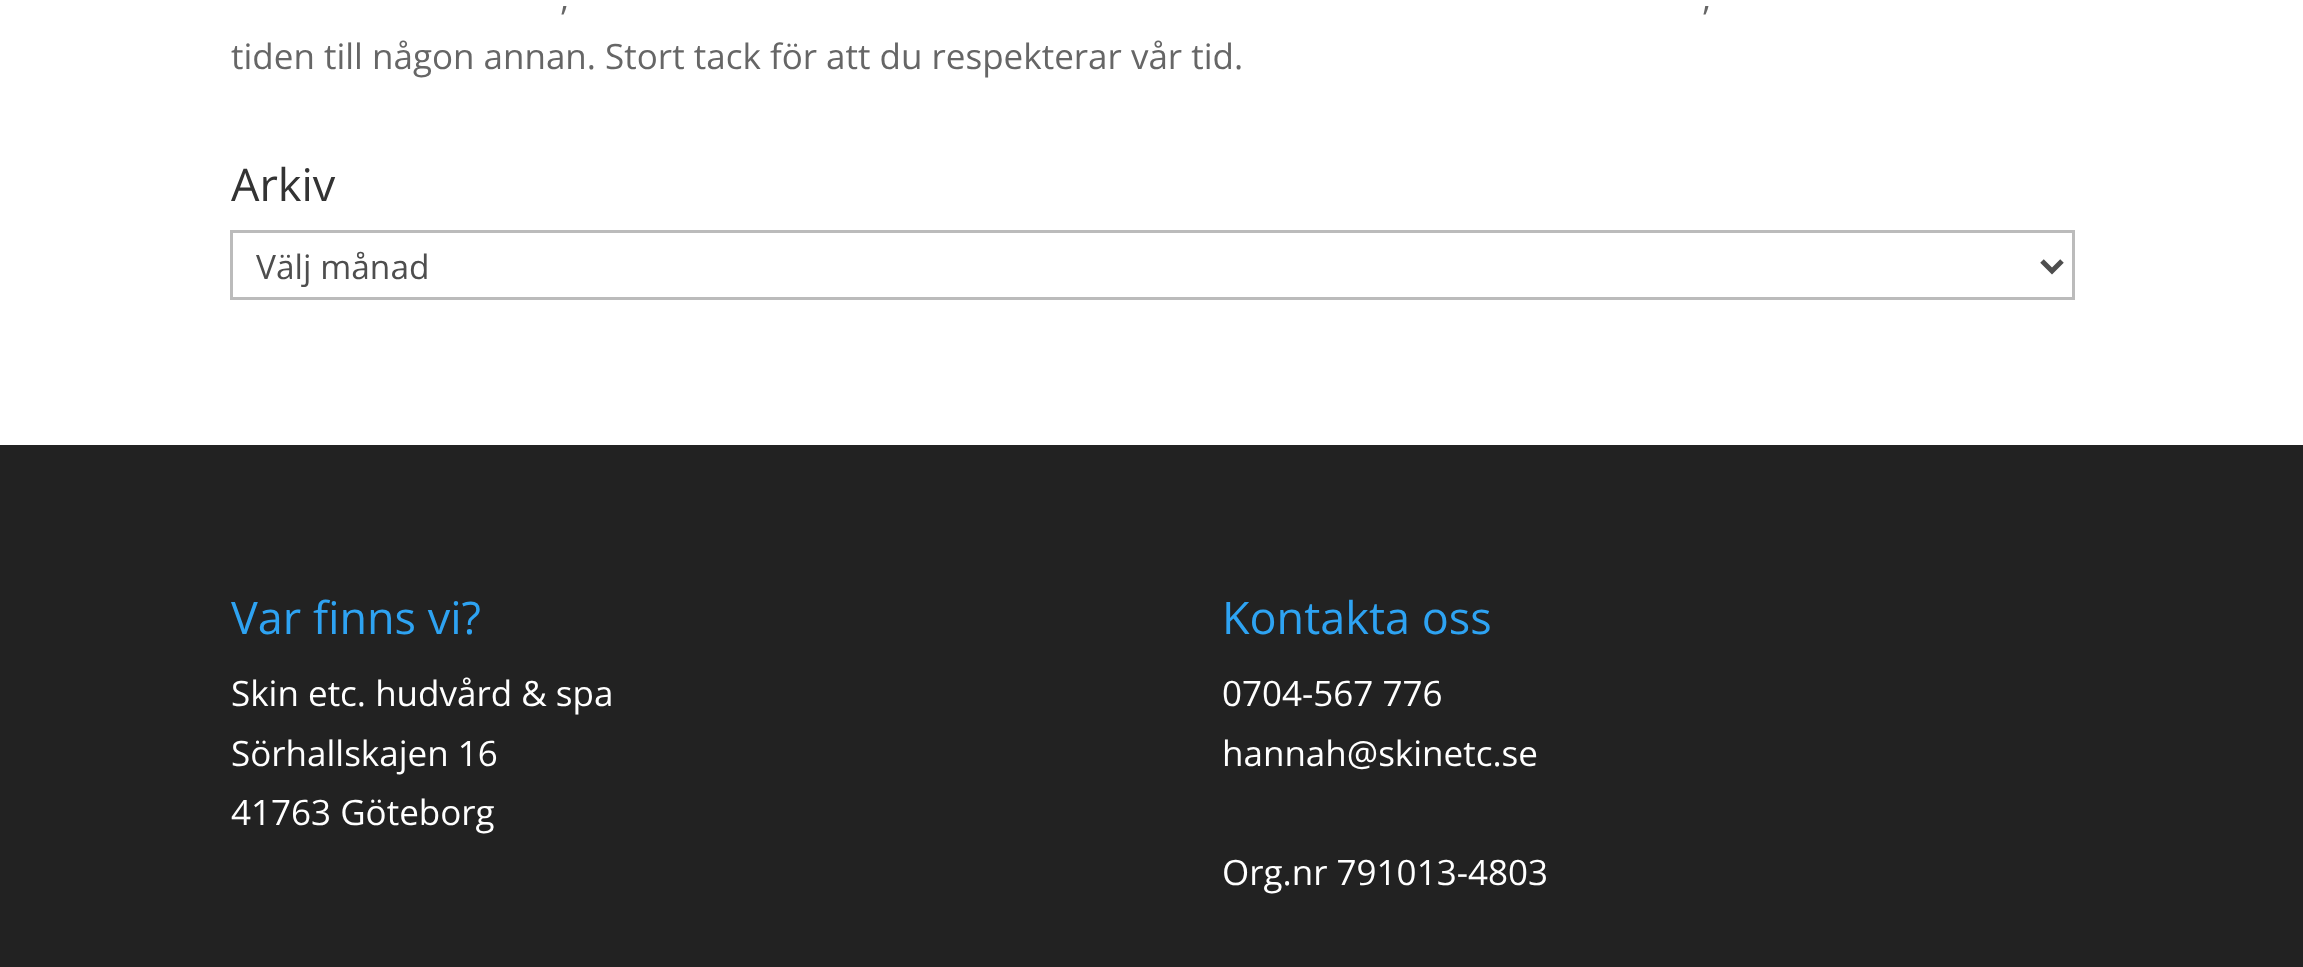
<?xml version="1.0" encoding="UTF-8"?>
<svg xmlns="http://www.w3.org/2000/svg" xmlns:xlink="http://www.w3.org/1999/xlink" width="2303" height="967">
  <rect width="100%" height="100%" fill="#ffffff" />
  <rect x="231.5" y="231.5" width="1842" height="67" fill="none" stroke="#bbbbbb" stroke-width="3" />
  <path d="M 2042 261 l 10 10 l 10 -10" fill="none" stroke="#4e4e4e" stroke-width="5" />
  <rect y="445" width="2303" height="522" fill="#222222" />
  <text x="560" y="10" style="font-family: Open Sans; font-size: 35px; fill: #666666">,</text>
  <text x="1702" y="10" style="font-family: Open Sans; font-size: 35px; fill: #666666">,</text>
  <text x="231" y="69" style="font-family: Open Sans; font-size: 35px; fill: #666666">tiden till någon annan. Stort tack för att du respekterar vår tid.</text>
  <text x="231" y="201" style="font-family: Open Sans; font-size: 45px; fill: #333333">Arkiv</text>
  <text x="256" y="279" style="font-family: Open Sans; font-size: 33.5px; fill: #4e4e4e">Välj månad</text>
  <text x="231" y="634" style="font-family: Open Sans; font-size: 45px; fill: #2ea3f2">Var finns vi?</text>
  <text x="231" y="706" style="font-family: Open Sans; font-size: 35px; fill: #ffffff">Skin etc. hudvård &amp; spa</text>
  <text x="231" y="766" style="font-family: Open Sans; font-size: 35px; fill: #ffffff">Sörhallskajen 16</text>
  <text x="231" y="825" style="font-family: Open Sans; font-size: 35px; fill: #ffffff">41763 Göteborg</text>
  <text x="1222" y="634" style="font-family: Open Sans; font-size: 45px; fill: #2ea3f2">Kontakta oss</text>
  <text x="1222" y="706" style="font-family: Open Sans; font-size: 35px; fill: #ffffff">0704-567 776</text>
  <text x="1222" y="766" style="font-family: Open Sans; font-size: 35px; fill: #ffffff">hannah@skinetc.se</text>
  <text x="1222" y="885" style="font-family: Open Sans; font-size: 35px; fill: #ffffff">Org.nr 791013-4803</text>
</svg>
